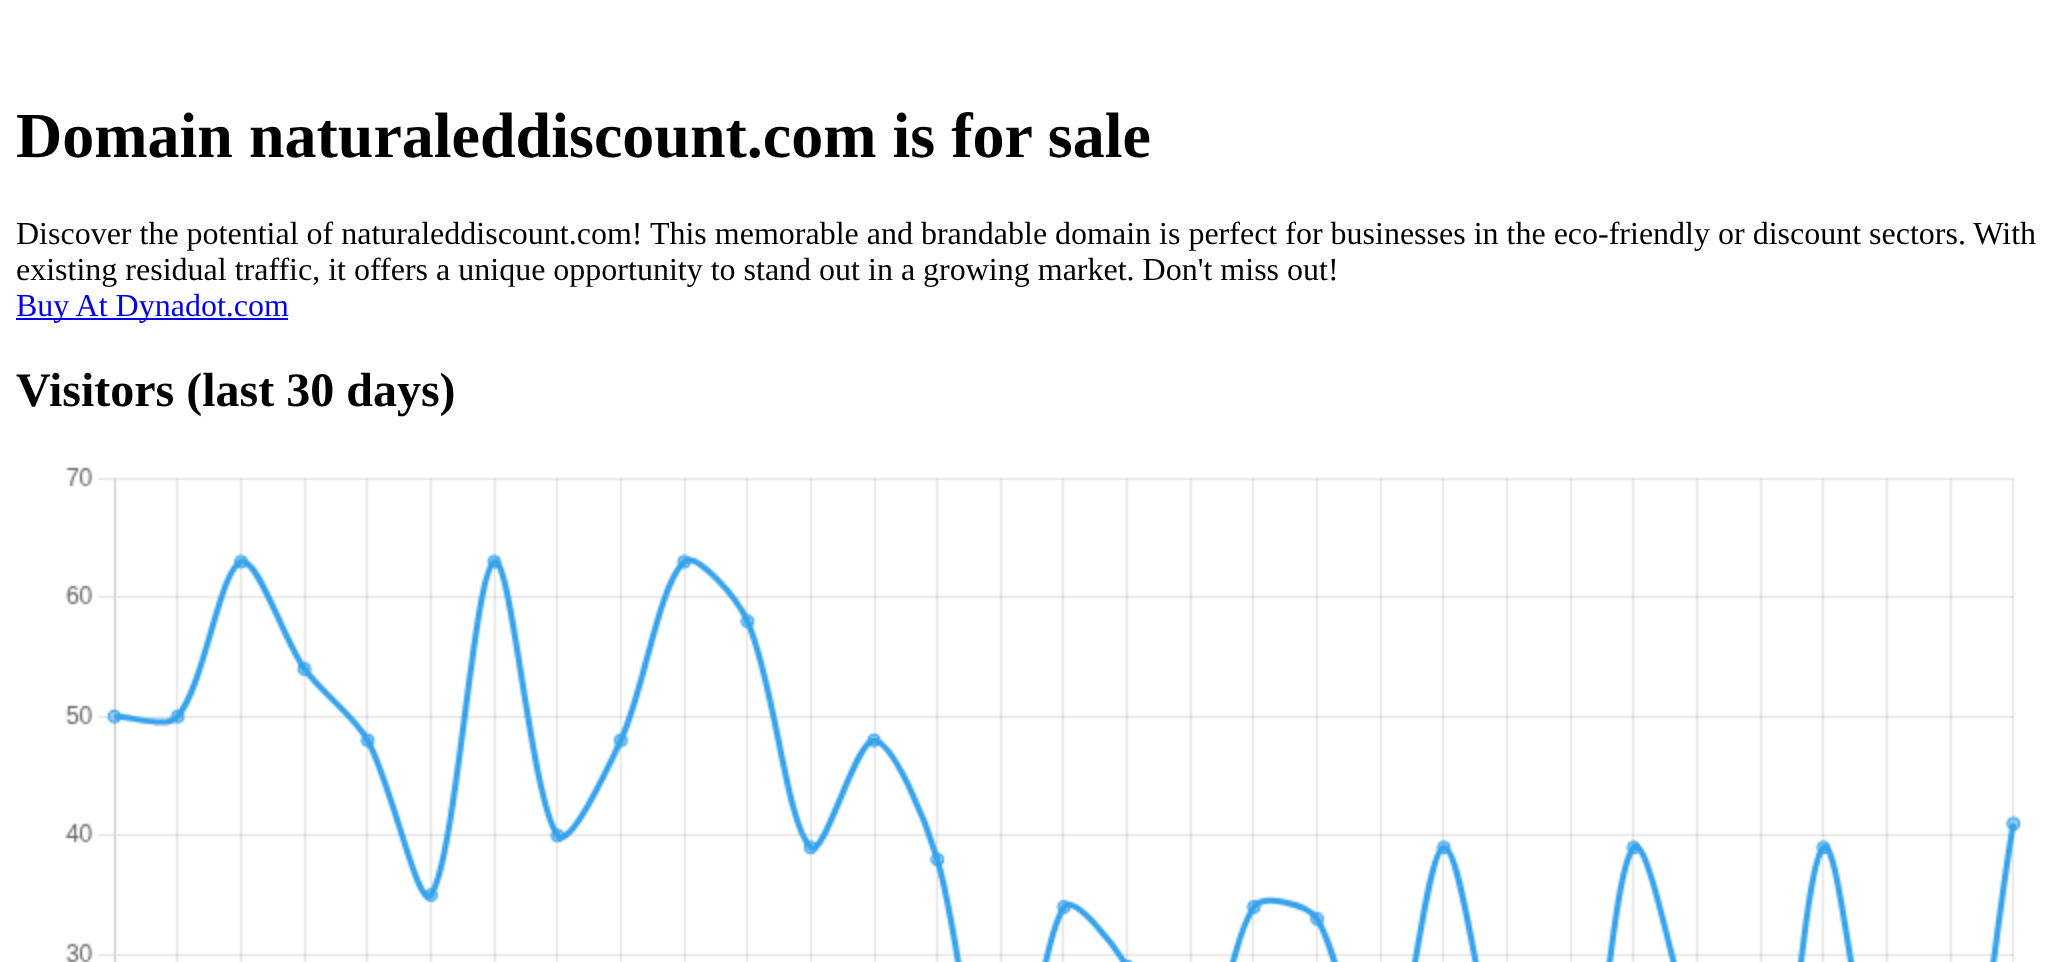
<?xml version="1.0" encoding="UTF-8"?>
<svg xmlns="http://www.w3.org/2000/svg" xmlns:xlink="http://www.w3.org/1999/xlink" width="2053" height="962">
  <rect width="100%" height="100%" fill="#ffffff" />
  <rect x="16" y="318" width="272" height="2" fill="#0000ee" />
  <image x="65" y="467" width="1957" height="495" xlink:href="image1.png" />
  <text x="16" y="157" style="font-family: Liberation Serif; font-size: 64px; font-weight: bold; fill: #000000">Domain naturaleddiscount.com is for sale</text>
  <text x="16" y="244" style="font-family: Liberation Serif; font-size: 32px; fill: #000000">Discover the potential of naturaleddiscount.com! This memorable and brandable domain is perfect for businesses in the eco-friendly or discount sectors. With</text>
  <text x="16" y="280" style="font-family: Liberation Serif; font-size: 32px; fill: #000000">existing residual traffic, it offers a unique opportunity to stand out in a growing market. Don't miss out!</text>
  <text x="16" y="316" style="font-family: Liberation Serif; font-size: 32px; fill: #0000ee">Buy At Dynadot.com</text>
  <text x="16" y="406" style="font-family: Liberation Serif; font-size: 48px; font-weight: bold; fill: #000000">Visitors (last 30 days)</text>
</svg>
